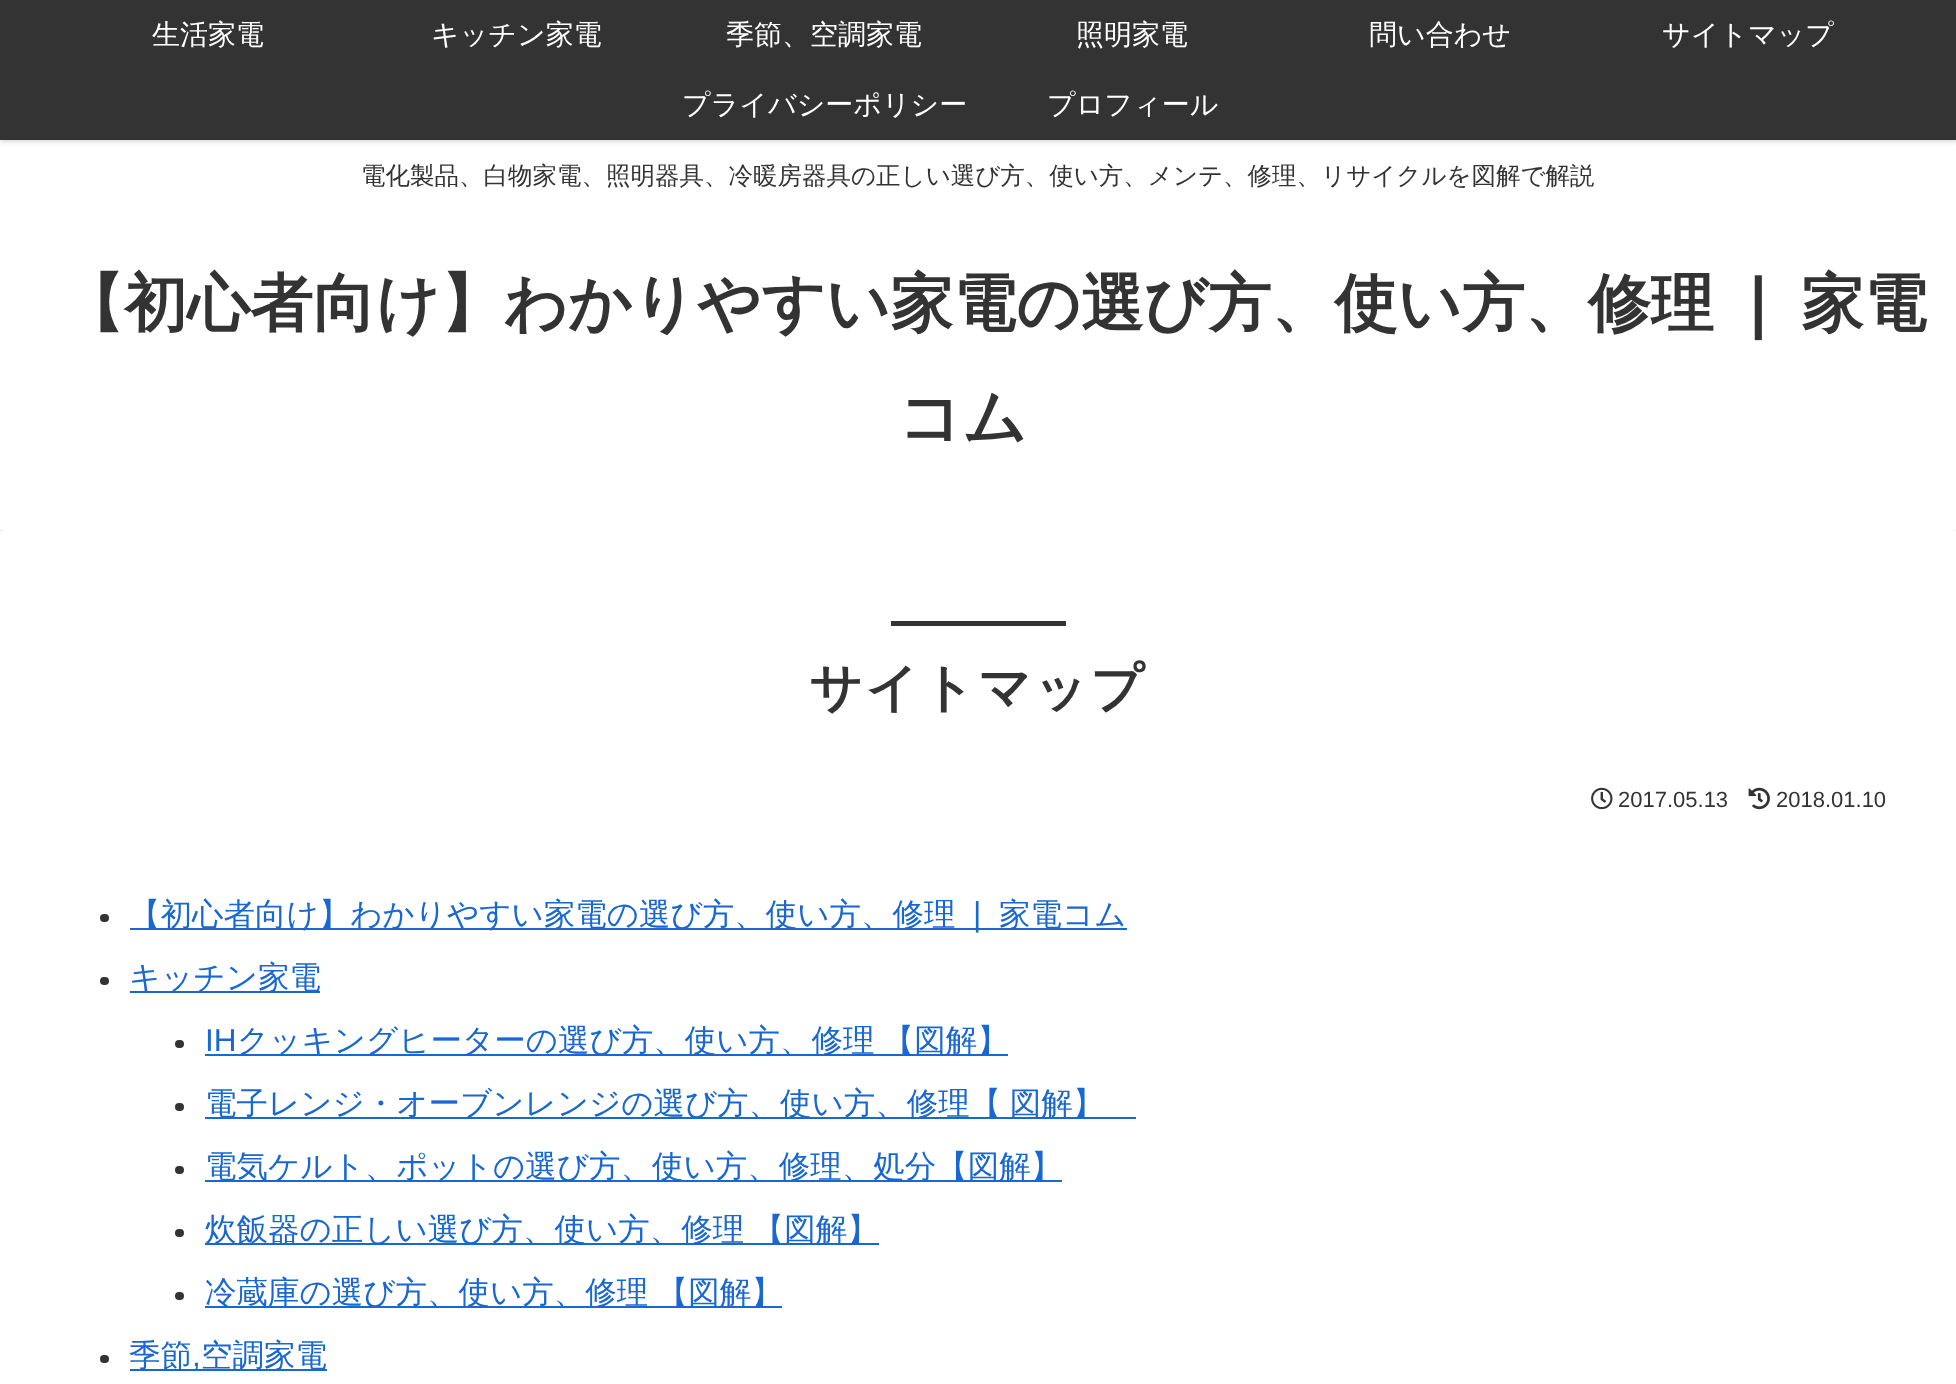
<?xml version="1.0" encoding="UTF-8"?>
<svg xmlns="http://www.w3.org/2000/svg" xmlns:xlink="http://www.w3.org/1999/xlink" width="1956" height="1384">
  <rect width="100%" height="100%" fill="#f4f5f7" />
  <rect y="140" width="1956" height="389" fill="#ffffff" />
  <rect y="2" width="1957" height="140" fill="#000000" fill-opacity="0.15" filter="blur(2px)" />
  <rect width="1956" height="140" fill="#333333" />
  <rect y="529" width="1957" height="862" rx="7" fill="#ffffff" />
  <rect x="891" y="621" width="175" height="5" fill="#333333" />
  <image x="1591" y="787" width="22" height="23" xlink:href="image1.png" />
  <image x="1748" y="787" width="22" height="23" xlink:href="image2.png" />
  <rect x="100" y="914" width="9" height="8" rx="4" fill="#333333" />
  <rect x="130" y="928" width="997" height="2" fill="#1967d2" />
  <rect x="100" y="977" width="9" height="8" rx="4" fill="#333333" />
  <rect x="130" y="991" width="190" height="2" fill="#1967d2" />
  <rect x="175" y="1040" width="9" height="8" rx="4" fill="#333333" />
  <rect x="205" y="1054" width="803" height="2" fill="#1967d2" />
  <rect x="175" y="1103" width="9" height="8" rx="4" fill="#333333" />
  <rect x="205" y="1117" width="931" height="2" fill="#1967d2" />
  <rect x="175" y="1166" width="9" height="8" rx="4" fill="#333333" />
  <rect x="205" y="1180" width="857" height="2" fill="#1967d2" />
  <rect x="175" y="1229" width="9" height="8" rx="4" fill="#333333" />
  <rect x="205" y="1243" width="674" height="2" fill="#1967d2" />
  <rect x="175" y="1292" width="9" height="8" rx="4" fill="#333333" />
  <rect x="205" y="1306" width="577" height="2" fill="#1967d2" />
  <rect x="100" y="1355" width="9" height="8" rx="4" fill="#333333" />
  <rect x="130" y="1369" width="197" height="2" fill="#1967d2" />
  <text x="152" y="44" style="font-family: WenQuanYi Zen Hei; font-size: 28px; font-weight: 500; fill: #ffffff">生活家電</text>
  <text x="431" y="44" style="font-family: WenQuanYi Zen Hei; font-size: 28px; font-weight: 500; fill: #ffffff">キッチン家電</text>
  <text x="726" y="44" style="font-family: WenQuanYi Zen Hei; font-size: 28px; font-weight: 500; fill: #ffffff">季節、空調家電</text>
  <text x="1076" y="44" style="font-family: WenQuanYi Zen Hei; font-size: 28px; font-weight: 500; fill: #ffffff">照明家電</text>
  <text x="1369" y="44" style="font-family: WenQuanYi Zen Hei; font-size: 28px; font-weight: 500; fill: #ffffff">問い合わせ</text>
  <text x="1662" y="44" style="font-family: WenQuanYi Zen Hei; font-size: 28px; font-weight: 500; fill: #ffffff">サイトマップ</text>
  <text x="682" y="114" style="font-family: WenQuanYi Zen Hei; font-size: 28px; font-weight: 500; fill: #ffffff">プライバシーポリシー</text>
  <text x="1047" y="114" style="font-family: WenQuanYi Zen Hei; font-size: 28px; font-weight: 500; fill: #ffffff">プロフィール</text>
  <text x="361" y="184" style="font-family: WenQuanYi Zen Hei; font-size: 24.5px; font-weight: 500; fill: #333333">電化製品、白物家電、照明器具、冷暖房器具の正しい選び方、使い方、メンテ、修理、リサイクルを図解で解説</text>
  <text x="61" y="325" style="font-family: WenQuanYi Zen Hei; font-size: 63px; font-weight: bold; fill: #333333">【初心者向け】わかりやすい家電の選び方、使い方、修理</text>
  <text x="1731" y="325" style="font-family: DejaVu Sans; font-size: 63px; font-weight: bold; fill: #333333">❘</text>
  <text x="1801" y="325" style="font-family: WenQuanYi Zen Hei; font-size: 63px; font-weight: bold; fill: #333333">家電</text>
  <text x="898" y="439" style="font-family: WenQuanYi Zen Hei; font-size: 63px; font-weight: bold; fill: #333333">コム</text>
  <text x="809" y="706" style="font-family: WenQuanYi Zen Hei; font-size: 52.5px; font-weight: bold; letter-spacing: 2.5px; fill: #333333">サイトマップ</text>
  <text x="1618" y="807" style="font-family: Liberation Sans; font-size: 22px; fill: #333333">2017.05.13</text>
  <text x="1776" y="807" style="font-family: Liberation Sans; font-size: 22px; fill: #333333">2018.01.10</text>
  <text x="129" y="925" style="font-family: WenQuanYi Zen Hei; font-size: 31.5px; font-weight: 500; fill: #1967d2">【初心者向け】わかりやすい家電の選び方、使い方、修理</text>
  <text x="964" y="925" style="font-family: DejaVu Sans; font-size: 31.5px; fill: #1967d2">❘</text>
  <text x="999" y="925" style="font-family: WenQuanYi Zen Hei; font-size: 31.5px; font-weight: 500; fill: #1967d2">家電コム</text>
  <text x="129" y="988" style="font-family: WenQuanYi Zen Hei; font-size: 31.5px; font-weight: 500; fill: #1967d2">キッチン家電</text>
  <text x="205" y="1051" style="font-family: Liberation Sans; font-size: 31.5px; fill: #1967d2">IH</text>
  <text x="237" y="1051" word-spacing="-1" style="font-family: WenQuanYi Zen Hei; font-size: 31.5px; font-weight: 500; fill: #1967d2">クッキングヒーターの選び方、使い方、修理 【図解】</text>
  <text x="205" y="1114" word-spacing="-1" style="font-family: WenQuanYi Zen Hei; font-size: 31.5px; font-weight: 500; fill: #1967d2">電子レンジ・オーブンレンジの選び方、使い方、修理【 図解】</text>
  <text x="205" y="1177" style="font-family: WenQuanYi Zen Hei; font-size: 31.5px; font-weight: 500; fill: #1967d2">電気ケルト、ポットの選び方、使い方、修理、処分【図解】</text>
  <text x="205" y="1240" word-spacing="-1" style="font-family: WenQuanYi Zen Hei; font-size: 31.5px; font-weight: 500; fill: #1967d2">炊飯器の正しい選び方、使い方、修理 【図解】</text>
  <text x="205" y="1303" word-spacing="-1" style="font-family: WenQuanYi Zen Hei; font-size: 31.5px; font-weight: 500; fill: #1967d2">冷蔵庫の選び方、使い方、修理 【図解】</text>
  <text x="129" y="1366" style="font-family: WenQuanYi Zen Hei; font-size: 31.5px; font-weight: 500; fill: #1967d2">季節</text>
  <text x="201" y="1366" style="font-family: WenQuanYi Zen Hei; font-size: 31.5px; font-weight: 500; fill: #1967d2">空調家電</text>
  <text x="192" y="1366" style="font-family: Liberation Sans; font-size: 31.5px; fill: #1967d2">,</text>
</svg>
